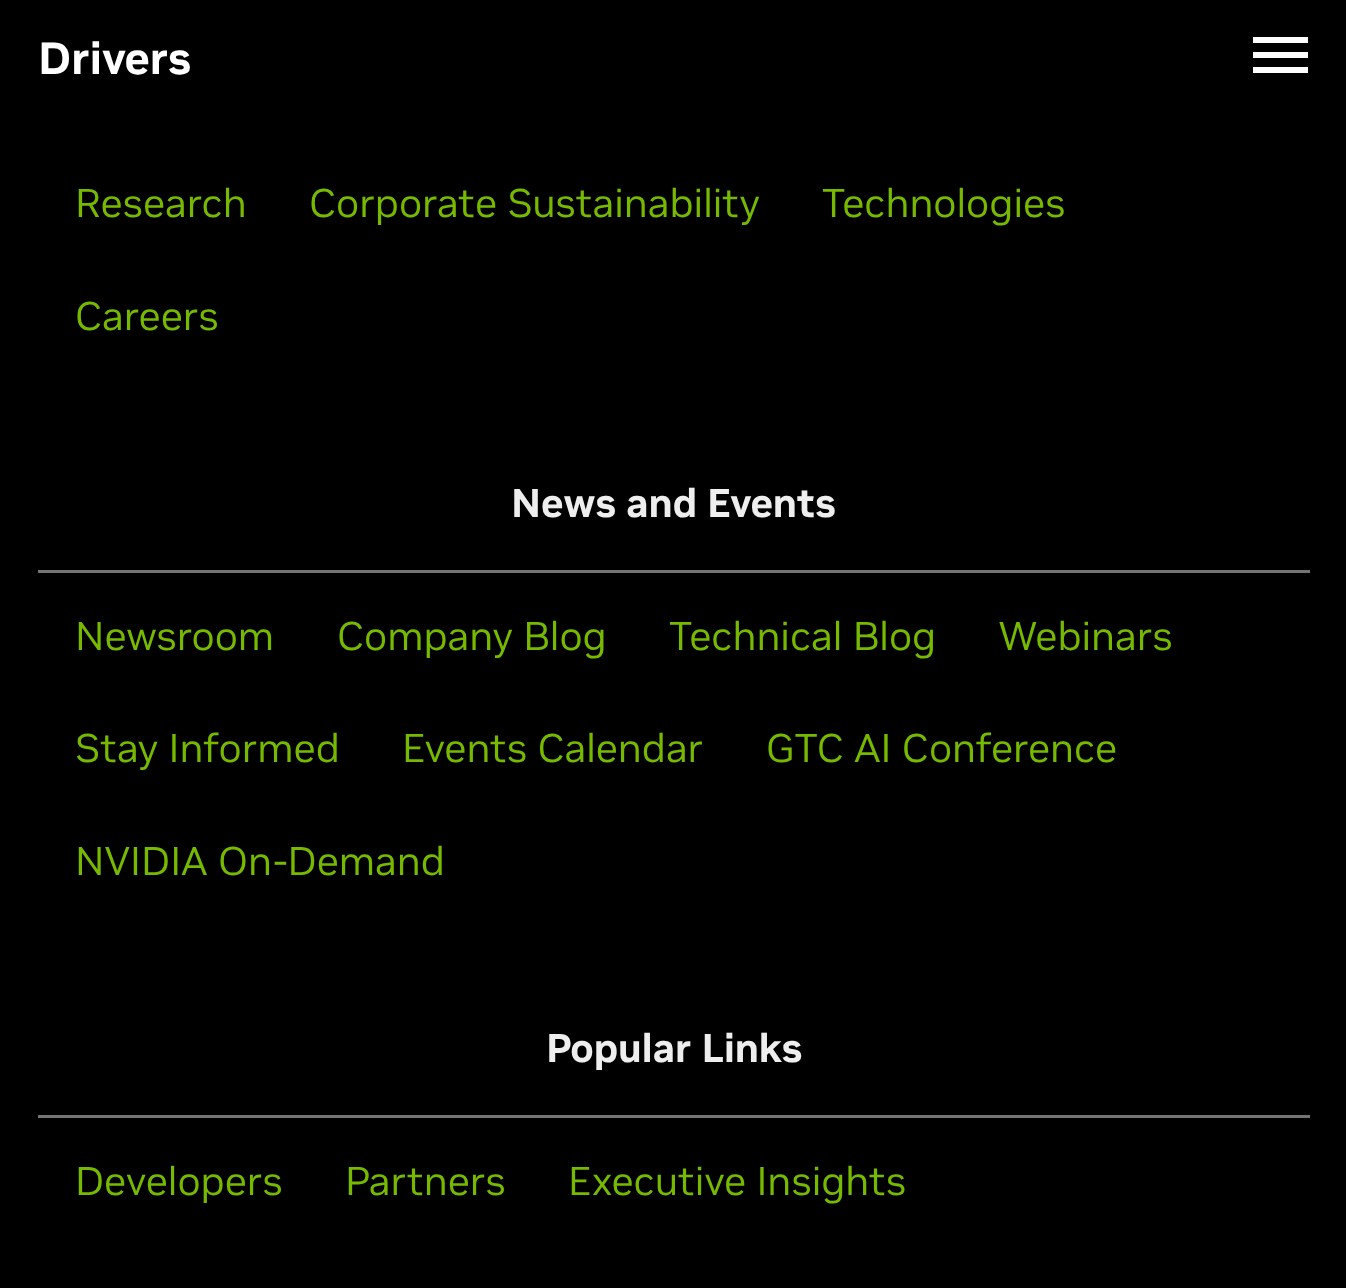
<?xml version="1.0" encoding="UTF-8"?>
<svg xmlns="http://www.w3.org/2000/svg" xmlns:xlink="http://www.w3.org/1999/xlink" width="1346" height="1288">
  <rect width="100%" height="100%" fill="#000000" />
  <rect x="1253" y="37" width="55" height="6" fill="#ffffff" />
  <rect x="1253" y="52" width="55" height="6" fill="#ffffff" />
  <rect x="1253" y="67" width="55" height="6" fill="#ffffff" />
  <rect x="38" y="570" width="1272" height="3" fill="#747474" />
  <rect x="38" y="1115" width="1272" height="3" fill="#747474" />
  <text x="38" y="74" style="font-family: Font; font-size: 45px; font-weight: bold; fill: #ffffff">Drivers</text>
  <text x="75" y="217" style="font-family: Font; font-size: 40px; fill: #76b900">Research</text>
  <text x="309" y="217" style="font-family: Font; font-size: 40px; fill: #76b900">Corporate Sustainability</text>
  <text x="822" y="217" style="font-family: Font; font-size: 40px; fill: #76b900">Technologies</text>
  <text x="75" y="330" style="font-family: Font; font-size: 40px; fill: #76b900">Careers</text>
  <text x="511" y="517" style="font-family: Font; font-size: 40px; font-weight: bold; fill: #eeeeee">News and Events</text>
  <text x="75" y="650" style="font-family: Font; font-size: 40px; fill: #76b900">Newsroom</text>
  <text x="337" y="650" style="font-family: Font; font-size: 40px; fill: #76b900">Company Blog</text>
  <text x="669" y="650" style="font-family: Font; font-size: 40px; fill: #76b900">Technical Blog</text>
  <text x="998" y="650" style="font-family: Font; font-size: 40px; fill: #76b900">Webinars</text>
  <text x="75" y="762" style="font-family: Font; font-size: 40px; fill: #76b900">Stay Informed</text>
  <text x="402" y="762" style="font-family: Font; font-size: 40px; fill: #76b900">Events Calendar</text>
  <text x="766" y="762" style="font-family: Font; font-size: 40px; fill: #76b900">GTC AI Conference</text>
  <text x="75" y="875" style="font-family: Font; font-size: 40px; fill: #76b900">NVIDIA On-Demand</text>
  <text x="546" y="1062" style="font-family: Font; font-size: 40px; font-weight: bold; fill: #eeeeee">Popular Links</text>
  <text x="75" y="1195" style="font-family: Font; font-size: 40px; fill: #76b900">Developers</text>
  <text x="345" y="1195" style="font-family: Font; font-size: 40px; fill: #76b900">Partners</text>
  <text x="568" y="1195" style="font-family: Font; font-size: 40px; fill: #76b900">Executive Insights</text>
</svg>
